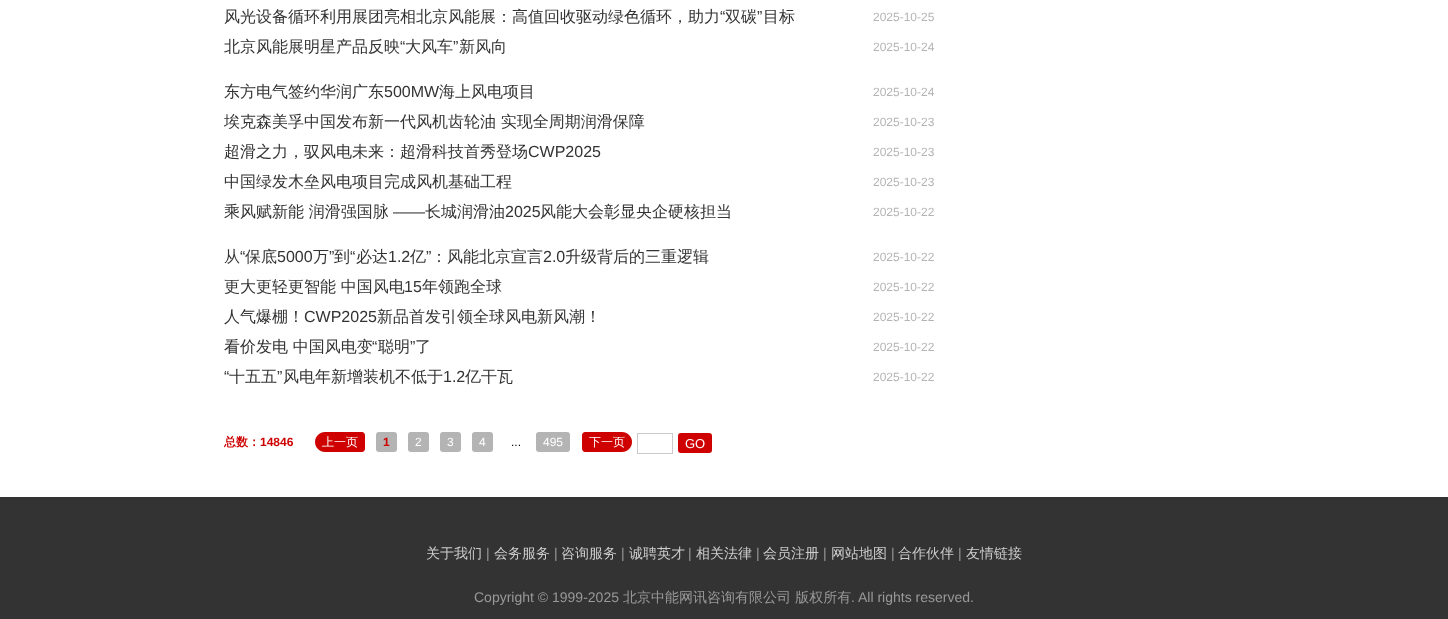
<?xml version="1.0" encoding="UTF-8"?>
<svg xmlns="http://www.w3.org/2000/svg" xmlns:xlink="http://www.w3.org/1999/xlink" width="1448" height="619">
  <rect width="100%" height="100%" fill="#ffffff" />
  <path d="M 325 432 h 37 c 1.5 0 3 1.5 3 3 v 14 c 0 1.5 -1.5 3 -3 3 h -37 c -5.5 0 -10 -4.5 -10 -10 c 0 -5.5 4.5 -10 10 -10 z" fill="#ce0100" />
  <rect x="376" y="432" width="21" height="20" rx="3" fill="#b4b4b4" />
  <rect x="408" y="432" width="21" height="20" rx="3" fill="#b4b4b4" />
  <rect x="440" y="432" width="21" height="20" rx="3" fill="#b4b4b4" />
  <rect x="472" y="432" width="21" height="20" rx="3" fill="#b4b4b4" />
  <rect x="536" y="432" width="34" height="20" rx="3" fill="#b4b4b4" />
  <path d="M 585 432 h 37 c 5.5 0 10 4.5 10 10 c 0 5.5 -4.5 10 -10 10 h -37 c -1.5 0 -3 -1.5 -3 -3 v -14 c 0 -1.5 1.5 -3 3 -3 z" fill="#ce0100" />
  <rect x="637.5" y="433.5" width="35" height="20" fill="none" stroke="#cacaca" />
  <rect x="678" y="433" width="34" height="20" rx="3" fill="#ce0100" />
  <rect y="497" width="1448" height="122" fill="#333333" />
  <text x="224" y="22" style="font-family: WenQuanYi Zen Hei; font-size: 16px; font-weight: 500; fill: #333333">风光设备循环利用展团亮相北京风能展：高值回收驱动绿色循环，助力</text>
  <text x="720" y="22" style="font-family: Liberation Sans; font-size: 16px; fill: #333333">“</text>
  <text x="725" y="22" style="font-family: WenQuanYi Zen Hei; font-size: 16px; font-weight: 500; fill: #333333">双碳</text>
  <text x="757" y="22" style="font-family: Liberation Sans; font-size: 16px; fill: #333333">”</text>
  <text x="763" y="22" style="font-family: WenQuanYi Zen Hei; font-size: 16px; font-weight: 500; fill: #333333">目标</text>
  <text x="873" y="21" style="font-family: Liberation Sans; font-size: 12px; fill: #b4b4b4">2025-10-25</text>
  <text x="224" y="52" style="font-family: WenQuanYi Zen Hei; font-size: 16px; font-weight: 500; fill: #333333">北京风能展明星产品反映</text>
  <text x="400" y="52" style="font-family: Liberation Sans; font-size: 16px; fill: #333333">“</text>
  <text x="405" y="52" style="font-family: WenQuanYi Zen Hei; font-size: 16px; font-weight: 500; fill: #333333">大风车</text>
  <text x="453" y="52" style="font-family: Liberation Sans; font-size: 16px; fill: #333333">”</text>
  <text x="459" y="52" style="font-family: WenQuanYi Zen Hei; font-size: 16px; font-weight: 500; fill: #333333">新风向</text>
  <text x="873" y="51" style="font-family: Liberation Sans; font-size: 12px; fill: #b4b4b4">2025-10-24</text>
  <text x="224" y="97" style="font-family: WenQuanYi Zen Hei; font-size: 16px; font-weight: 500; fill: #333333">东方电气签约华润广东</text>
  <text x="384" y="97" style="font-family: Liberation Sans; font-size: 16px; fill: #333333">500MW</text>
  <text x="439" y="97" style="font-family: WenQuanYi Zen Hei; font-size: 16px; font-weight: 500; fill: #333333">海上风电项目</text>
  <text x="873" y="96" style="font-family: Liberation Sans; font-size: 12px; fill: #b4b4b4">2025-10-24</text>
  <text x="224" y="127" style="font-family: WenQuanYi Zen Hei; font-size: 16px; font-weight: 500; fill: #333333">埃克森美孚中国发布新一代风机齿轮油 实现全周期润滑保障</text>
  <text x="873" y="126" style="font-family: Liberation Sans; font-size: 12px; fill: #b4b4b4">2025-10-23</text>
  <text x="224" y="157" style="font-family: WenQuanYi Zen Hei; font-size: 16px; font-weight: 500; fill: #333333">超滑之力，驭风电未来：超滑科技首秀登场</text>
  <text x="528" y="157" style="font-family: Liberation Sans; font-size: 16px; fill: #333333">CWP2025</text>
  <text x="873" y="156" style="font-family: Liberation Sans; font-size: 12px; fill: #b4b4b4">2025-10-23</text>
  <text x="224" y="187" style="font-family: WenQuanYi Zen Hei; font-size: 16px; font-weight: 500; fill: #333333">中国绿发木垒风电项目完成风机基础工程</text>
  <text x="873" y="186" style="font-family: Liberation Sans; font-size: 12px; fill: #b4b4b4">2025-10-23</text>
  <text x="224" y="217" style="font-family: WenQuanYi Zen Hei; font-size: 16px; font-weight: 500; fill: #333333">乘风赋新能 润滑强国脉</text>
  <text x="393" y="217" style="font-family: Liberation Sans; font-size: 16px; fill: #333333">——</text>
  <text x="425" y="217" style="font-family: WenQuanYi Zen Hei; font-size: 16px; font-weight: 500; fill: #333333">长城润滑油</text>
  <text x="505" y="217" style="font-family: Liberation Sans; font-size: 16px; fill: #333333">2025</text>
  <text x="540" y="217" style="font-family: WenQuanYi Zen Hei; font-size: 16px; font-weight: 500; fill: #333333">风能大会彰显央企硬核担当</text>
  <text x="873" y="216" style="font-family: Liberation Sans; font-size: 12px; fill: #b4b4b4">2025-10-22</text>
  <text x="224" y="262" style="font-family: WenQuanYi Zen Hei; font-size: 16px; font-weight: 500; fill: #333333">从</text>
  <text x="240" y="262" style="font-family: Liberation Sans; font-size: 16px; fill: #333333">“</text>
  <text x="245" y="262" style="font-family: WenQuanYi Zen Hei; font-size: 16px; font-weight: 500; fill: #333333">保底</text>
  <text x="277" y="262" style="font-family: Liberation Sans; font-size: 16px; fill: #333333">5000</text>
  <text x="313" y="262" style="font-family: WenQuanYi Zen Hei; font-size: 16px; font-weight: 500; fill: #333333">万</text>
  <text x="329" y="262" style="font-family: Liberation Sans; font-size: 16px; fill: #333333">”</text>
  <text x="334" y="262" style="font-family: WenQuanYi Zen Hei; font-size: 16px; font-weight: 500; fill: #333333">到</text>
  <text x="350" y="262" style="font-family: Liberation Sans; font-size: 16px; fill: #333333">“</text>
  <text x="356" y="262" style="font-family: WenQuanYi Zen Hei; font-size: 16px; font-weight: 500; fill: #333333">必达</text>
  <text x="388" y="262" style="font-family: Liberation Sans; font-size: 16px; fill: #333333">1.2</text>
  <text x="410" y="262" style="font-family: WenQuanYi Zen Hei; font-size: 16px; font-weight: 500; fill: #333333">亿</text>
  <text x="426" y="262" style="font-family: Liberation Sans; font-size: 16px; fill: #333333">”</text>
  <text x="431" y="262" style="font-family: WenQuanYi Zen Hei; font-size: 16px; font-weight: 500; fill: #333333">：风能北京宣言</text>
  <text x="543" y="262" style="font-family: Liberation Sans; font-size: 16px; fill: #333333">2.0</text>
  <text x="565" y="262" style="font-family: WenQuanYi Zen Hei; font-size: 16px; font-weight: 500; fill: #333333">升级背后的三重逻辑</text>
  <text x="873" y="261" style="font-family: Liberation Sans; font-size: 12px; fill: #b4b4b4">2025-10-22</text>
  <text x="224" y="292" style="font-family: WenQuanYi Zen Hei; font-size: 16px; font-weight: 500; fill: #333333">更大更轻更智能 中国风电</text>
  <text x="404" y="292" style="font-family: Liberation Sans; font-size: 16px; fill: #333333">15</text>
  <text x="422" y="292" style="font-family: WenQuanYi Zen Hei; font-size: 16px; font-weight: 500; fill: #333333">年领跑全球</text>
  <text x="873" y="291" style="font-family: Liberation Sans; font-size: 12px; fill: #b4b4b4">2025-10-22</text>
  <text x="224" y="322" style="font-family: WenQuanYi Zen Hei; font-size: 16px; font-weight: 500; fill: #333333">人气爆棚！</text>
  <text x="304" y="322" style="font-family: Liberation Sans; font-size: 16px; fill: #333333">CWP2025</text>
  <text x="377" y="322" style="font-family: WenQuanYi Zen Hei; font-size: 16px; font-weight: 500; fill: #333333">新品首发引领全球风电新风潮！</text>
  <text x="873" y="321" style="font-family: Liberation Sans; font-size: 12px; fill: #b4b4b4">2025-10-22</text>
  <text x="224" y="352" style="font-family: WenQuanYi Zen Hei; font-size: 16px; font-weight: 500; fill: #333333">看价发电 中国风电变</text>
  <text x="372" y="352" style="font-family: Liberation Sans; font-size: 16px; fill: #333333">“</text>
  <text x="378" y="352" style="font-family: WenQuanYi Zen Hei; font-size: 16px; font-weight: 500; fill: #333333">聪明</text>
  <text x="410" y="352" style="font-family: Liberation Sans; font-size: 16px; fill: #333333">”</text>
  <text x="415" y="352" style="font-family: WenQuanYi Zen Hei; font-size: 16px; font-weight: 500; fill: #333333">了</text>
  <text x="873" y="351" style="font-family: Liberation Sans; font-size: 12px; fill: #b4b4b4">2025-10-22</text>
  <text x="224" y="382" style="font-family: Liberation Sans; font-size: 16px; fill: #333333">“</text>
  <text x="229" y="382" style="font-family: WenQuanYi Zen Hei; font-size: 16px; font-weight: 500; fill: #333333">十五五</text>
  <text x="277" y="382" style="font-family: Liberation Sans; font-size: 16px; fill: #333333">”</text>
  <text x="283" y="382" style="font-family: WenQuanYi Zen Hei; font-size: 16px; font-weight: 500; fill: #333333">风电年新增装机不低于</text>
  <text x="443" y="382" style="font-family: Liberation Sans; font-size: 16px; fill: #333333">1.2</text>
  <text x="465" y="382" style="font-family: WenQuanYi Zen Hei; font-size: 16px; font-weight: 500; fill: #333333">亿干瓦</text>
  <text x="873" y="381" style="font-family: Liberation Sans; font-size: 12px; fill: #b4b4b4">2025-10-22</text>
  <text x="224" y="446" style="font-family: WenQuanYi Zen Hei; font-size: 12px; font-weight: bold; fill: #ce0100">总数：</text>
  <text x="260" y="446" style="font-family: Liberation Sans; font-size: 12px; font-weight: bold; fill: #ce0100">14846</text>
  <text x="322" y="446" style="font-family: WenQuanYi Zen Hei; font-size: 12px; font-weight: 500; fill: #ffffff">上一页</text>
  <text x="383" y="446" style="font-family: Liberation Sans; font-size: 12px; font-weight: bold; fill: #ce0100">1</text>
  <text x="415" y="446" style="font-family: Liberation Sans; font-size: 12px; fill: #ffffff">2</text>
  <text x="447" y="446" style="font-family: Liberation Sans; font-size: 12px; fill: #ffffff">3</text>
  <text x="479" y="446" style="font-family: Liberation Sans; font-size: 12px; fill: #ffffff">4</text>
  <text x="511" y="446" style="font-family: Liberation Sans; font-size: 12px; fill: #000000">...</text>
  <text x="543" y="446" style="font-family: Liberation Sans; font-size: 12px; fill: #ffffff">495</text>
  <text x="589" y="446" style="font-family: WenQuanYi Zen Hei; font-size: 12px; font-weight: 500; fill: #ffffff">下一页</text>
  <text x="685" y="448" style="font-family: Liberation Sans; font-size: 13px; fill: #ffffff">GO</text>
  <text x="426" y="558" style="font-family: WenQuanYi Zen Hei; font-size: 14px; font-weight: 500; fill: #cccccc">关于我们</text>
  <text x="486" y="558" style="font-family: Liberation Sans; font-size: 14px; fill: #999999">|</text>
  <text x="494" y="558" style="font-family: WenQuanYi Zen Hei; font-size: 14px; font-weight: 500; fill: #cccccc">会务服务</text>
  <text x="554" y="558" style="font-family: Liberation Sans; font-size: 14px; fill: #999999">|</text>
  <text x="561" y="558" style="font-family: WenQuanYi Zen Hei; font-size: 14px; font-weight: 500; fill: #cccccc">咨询服务</text>
  <text x="621" y="558" style="font-family: Liberation Sans; font-size: 14px; fill: #999999">|</text>
  <text x="629" y="558" style="font-family: WenQuanYi Zen Hei; font-size: 14px; font-weight: 500; fill: #cccccc">诚聘英才</text>
  <text x="688" y="558" style="font-family: Liberation Sans; font-size: 14px; fill: #999999">|</text>
  <text x="696" y="558" style="font-family: WenQuanYi Zen Hei; font-size: 14px; font-weight: 500; fill: #cccccc">相关法律</text>
  <text x="756" y="558" style="font-family: Liberation Sans; font-size: 14px; fill: #999999">|</text>
  <text x="763" y="558" style="font-family: WenQuanYi Zen Hei; font-size: 14px; font-weight: 500; fill: #cccccc">会员注册</text>
  <text x="823" y="558" style="font-family: Liberation Sans; font-size: 14px; fill: #999999">|</text>
  <text x="831" y="558" style="font-family: WenQuanYi Zen Hei; font-size: 14px; font-weight: 500; fill: #cccccc">网站地图</text>
  <text x="891" y="558" style="font-family: Liberation Sans; font-size: 14px; fill: #999999">|</text>
  <text x="898" y="558" style="font-family: WenQuanYi Zen Hei; font-size: 14px; font-weight: 500; fill: #cccccc">合作伙伴</text>
  <text x="958" y="558" style="font-family: Liberation Sans; font-size: 14px; fill: #999999">|</text>
  <text x="966" y="558" style="font-family: WenQuanYi Zen Hei; font-size: 14px; font-weight: 500; fill: #cccccc">友情链接</text>
  <text x="474" y="602" style="font-family: Liberation Sans; font-size: 14px; fill: #999999">Copyright © 1999-2025</text>
  <text x="623" y="602" style="font-family: WenQuanYi Zen Hei; font-size: 14px; font-weight: 500; fill: #999999">北京中能网讯咨询有限公司 版权所有</text>
  <text x="851" y="602" style="font-family: Liberation Sans; font-size: 14px; fill: #999999">. All rights reserved.</text>
</svg>
